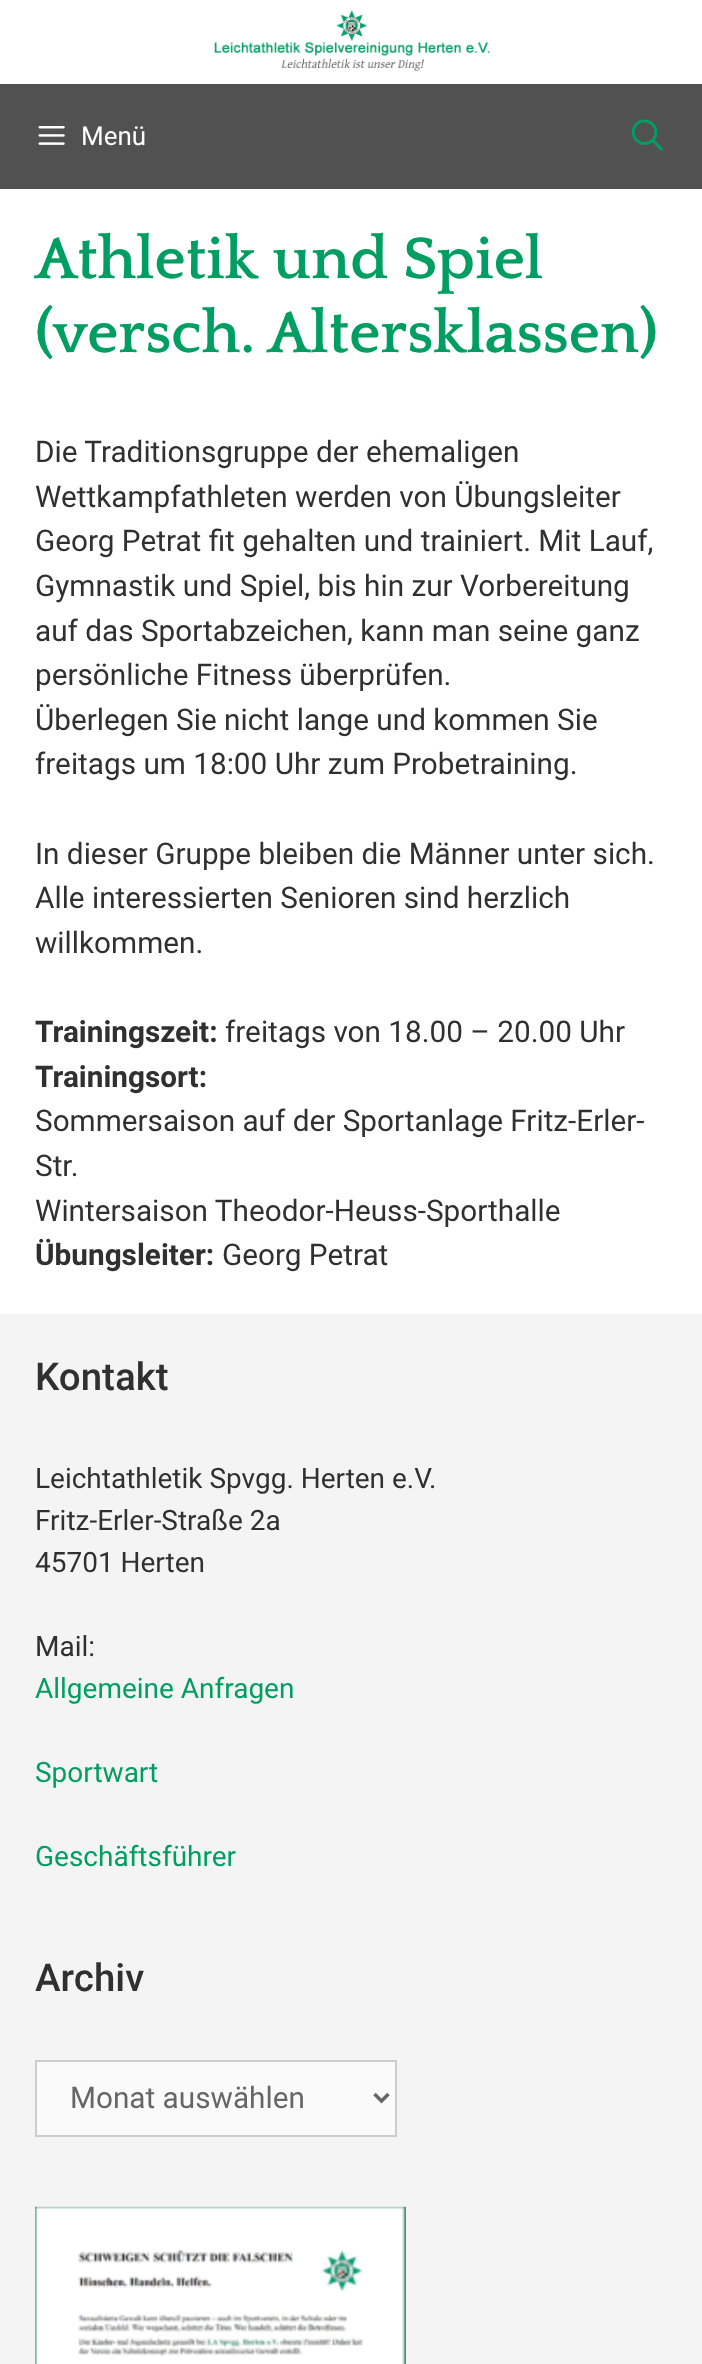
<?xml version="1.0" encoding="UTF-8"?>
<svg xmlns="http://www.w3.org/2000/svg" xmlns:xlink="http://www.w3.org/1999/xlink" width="702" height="2364">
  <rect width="100%" height="100%" fill="#ffffff" />
  <image x="214" y="10" width="276" height="61" xlink:href="image1.png" />
  <rect y="84" width="702" height="105" fill="#515151" />
  <image x="38" y="126" width="27" height="19" xlink:href="image2.png" />
  <image x="631" y="119" width="33" height="32" xlink:href="image3.png" />
  <rect y="1314" width="702" height="1050" fill="#f5f4f4" />
  <rect x="36" y="2061" width="360" height="75" fill="#fafafa" stroke="#cccccc" stroke-width="2" />
  <path d="M 374.5 2094 l 7 7 l 7 -7" fill="none" stroke="#666666" stroke-width="3.5" />
  <image x="35" y="2206" width="371" height="158" xlink:href="image4.png" />
  <text x="81" y="145" style="font-family: Roboto; font-size: 26px; fill: #ffffff">Menü</text>
  <text x="35" y="278" style="font-family: Quattrocento; font-size: 61.25px; font-weight: bold; fill: #009e62">Athletik und Spiel</text>
  <text x="35" y="352" style="font-family: Quattrocento; font-size: 61.25px; font-weight: bold; fill: #009e62">(versch. Altersklassen)</text>
  <text x="35" y="462" style="font-family: Roboto; font-size: 29.75px; fill: #303030">Die Traditionsgruppe der ehemaligen</text>
  <text x="35" y="507" style="font-family: Roboto; font-size: 29.75px; fill: #303030">Wettkampfathleten werden von Übungsleiter</text>
  <text x="35" y="551" style="font-family: Roboto; font-size: 29.75px; fill: #303030">Georg Petrat fit gehalten und trainiert. Mit Lauf,</text>
  <text x="35" y="596" style="font-family: Roboto; font-size: 29.75px; fill: #303030">Gymnastik und Spiel, bis hin zur Vorbereitung</text>
  <text x="35" y="641" style="font-family: Roboto; font-size: 29.75px; fill: #303030">auf das Sportabzeichen, kann man seine ganz</text>
  <text x="35" y="685" style="font-family: Roboto; font-size: 29.75px; fill: #303030">persönliche Fitness überprüfen.</text>
  <text x="35" y="730" style="font-family: Roboto; font-size: 29.75px; fill: #303030">Überlegen Sie nicht lange und kommen Sie</text>
  <text x="35" y="774" style="font-family: Roboto; font-size: 29.75px; fill: #303030">freitags um 18:00 Uhr zum Probetraining.</text>
  <text x="35" y="864" style="font-family: Roboto; font-size: 29.75px; fill: #303030">In dieser Gruppe bleiben die Männer unter sich.</text>
  <text x="35" y="908" style="font-family: Roboto; font-size: 29.75px; fill: #303030">Alle interessierten Senioren sind herzlich</text>
  <text x="35" y="953" style="font-family: Roboto; font-size: 29.75px; fill: #303030">willkommen.</text>
  <text x="35" y="1042" style="font-family: Roboto; font-size: 29.75px; font-weight: bold; fill: #303030">Trainingszeit:</text>
  <text x="225" y="1042" style="font-family: Roboto; font-size: 29.75px; fill: #303030">freitags von 18.00 – 20.00 Uhr</text>
  <text x="35" y="1087" style="font-family: Roboto; font-size: 29.75px; font-weight: bold; fill: #303030">Trainingsort:</text>
  <text x="35" y="1131" style="font-family: Roboto; font-size: 29.75px; fill: #303030">Sommersaison auf der Sportanlage Fritz-Erler-</text>
  <text x="35" y="1176" style="font-family: Roboto; font-size: 29.75px; fill: #303030">Str.</text>
  <text x="35" y="1221" style="font-family: Roboto; font-size: 29.75px; fill: #303030">Wintersaison Theodor-Heuss-Sporthalle</text>
  <text x="35" y="1265" style="font-family: Roboto; font-size: 29.75px; font-weight: bold; fill: #303030">Übungsleiter:</text>
  <text x="222" y="1265" style="font-family: Roboto; font-size: 29.75px; fill: #303030">Georg Petrat</text>
  <text x="35" y="1390" style="font-family: Roboto; font-size: 38.5px; font-weight: 500; fill: #303030">Kontakt</text>
  <text x="35" y="1488" style="font-family: Roboto; font-size: 28px; fill: #303030">Leichtathletik Spvgg. Herten e.V.</text>
  <text x="35" y="1530" style="font-family: Roboto; font-size: 28px; fill: #303030">Fritz-Erler-Straße 2a</text>
  <text x="35" y="1572" style="font-family: Roboto; font-size: 28px; fill: #303030">45701 Herten</text>
  <text x="35" y="1656" style="font-family: Roboto; font-size: 28px; fill: #303030">Mail:</text>
  <text x="35" y="1698" style="font-family: Roboto; font-size: 28px; fill: #009e62">Allgemeine Anfragen</text>
  <text x="35" y="1782" style="font-family: Roboto; font-size: 28px; fill: #009e62">Sportwart</text>
  <text x="35" y="1866" style="font-family: Roboto; font-size: 28px; fill: #009e62">Geschäftsführer</text>
  <text x="35" y="1991" style="font-family: Roboto; font-size: 38.5px; font-weight: 500; fill: #303030">Archiv</text>
  <text x="70" y="2108" style="font-family: Roboto; font-size: 29.75px; fill: #666666">Monat auswählen</text>
</svg>
